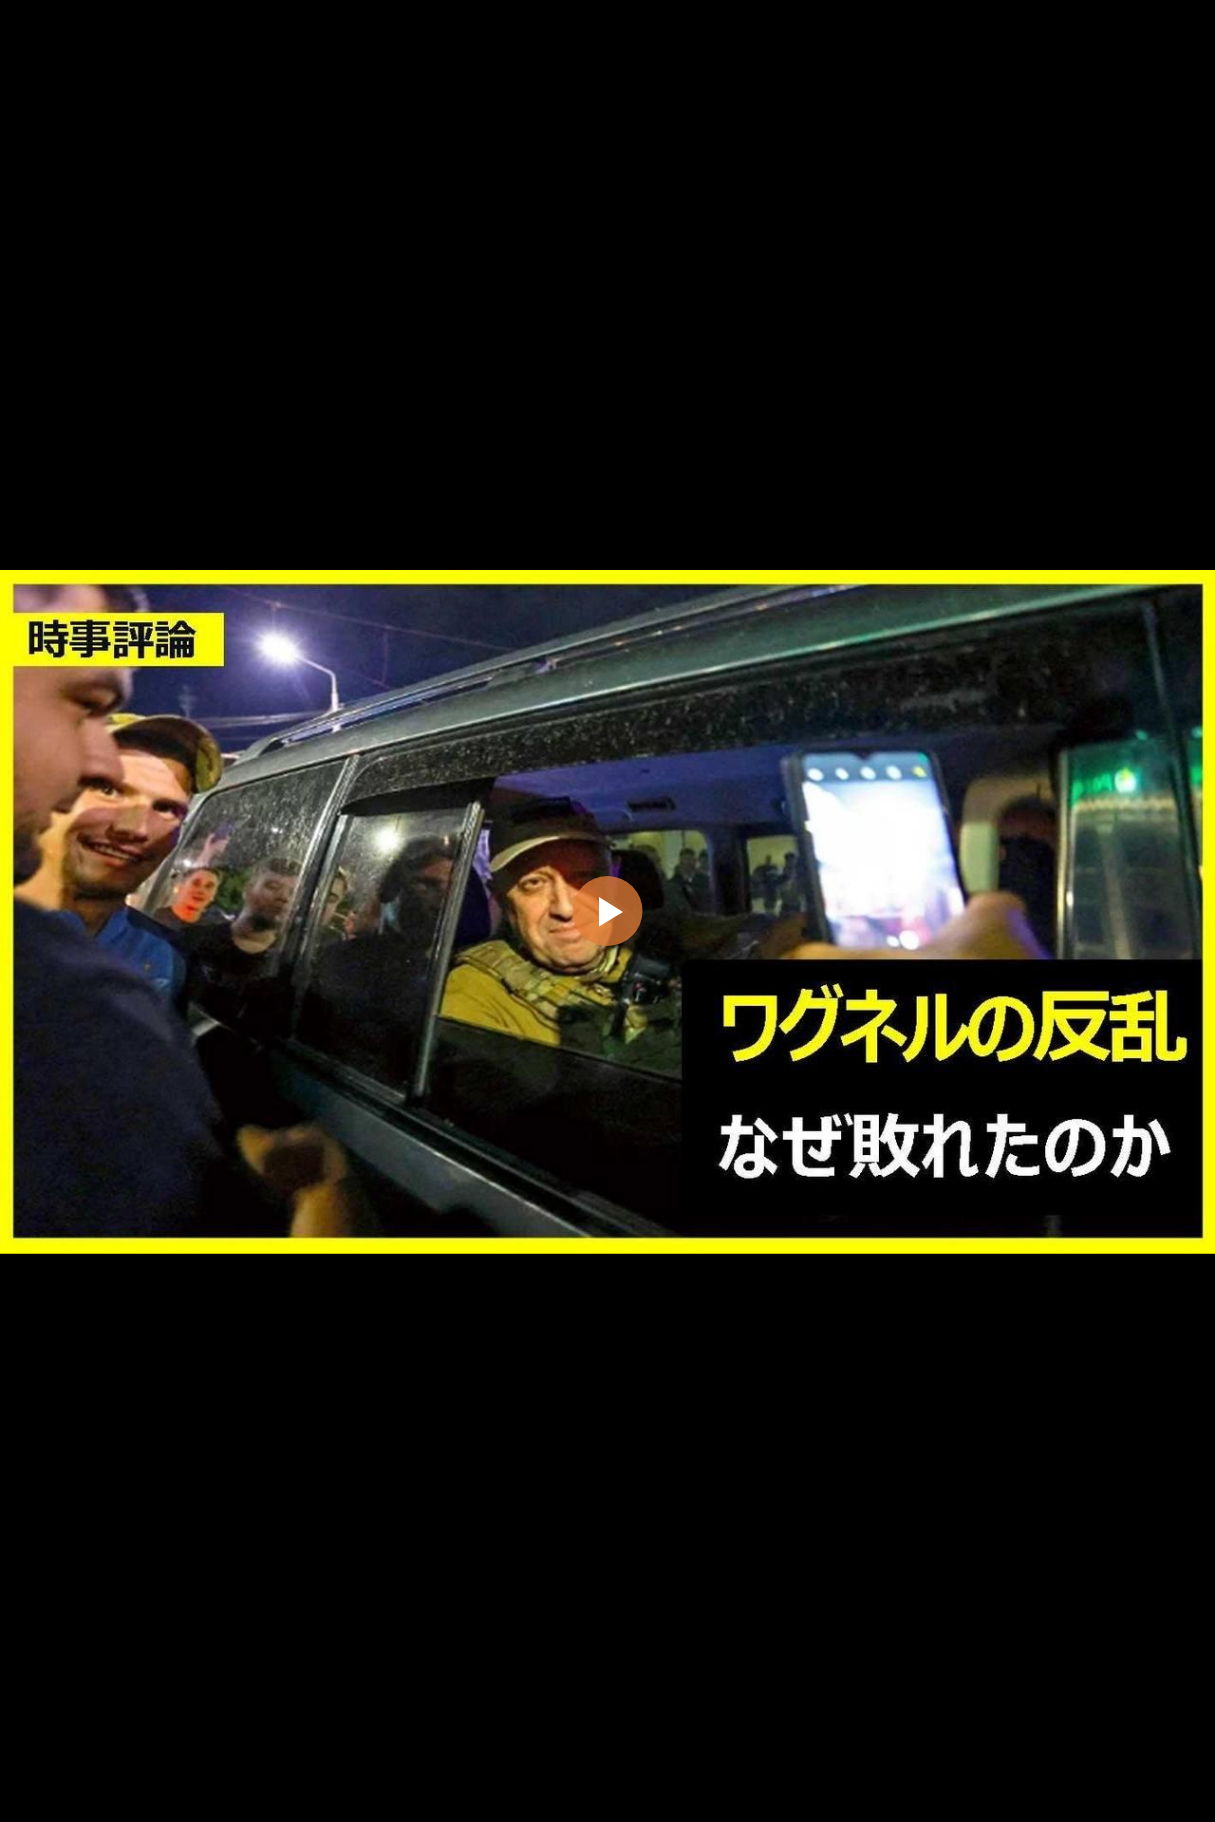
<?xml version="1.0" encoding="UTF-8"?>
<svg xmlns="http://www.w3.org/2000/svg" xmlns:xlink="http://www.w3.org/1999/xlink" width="1215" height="1822">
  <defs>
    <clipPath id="clip1"><rect x="573" y="876" width="70" height="70" /></clipPath>
  </defs>
  <rect width="100%" height="100%" fill="#000000" />
  <image x="0" y="570" width="1215" height="684" xlink:href="image1.png" />
  <g clip-path="url(#clip1)">
    <circle cx="607.5" cy="911" r="35" fill="#e57f38" fill-opacity="0.75" />
  </g>
  <path d="M 599 897 v 29.5 l 24 -14.5 z" fill="#ffffff" />
</svg>
